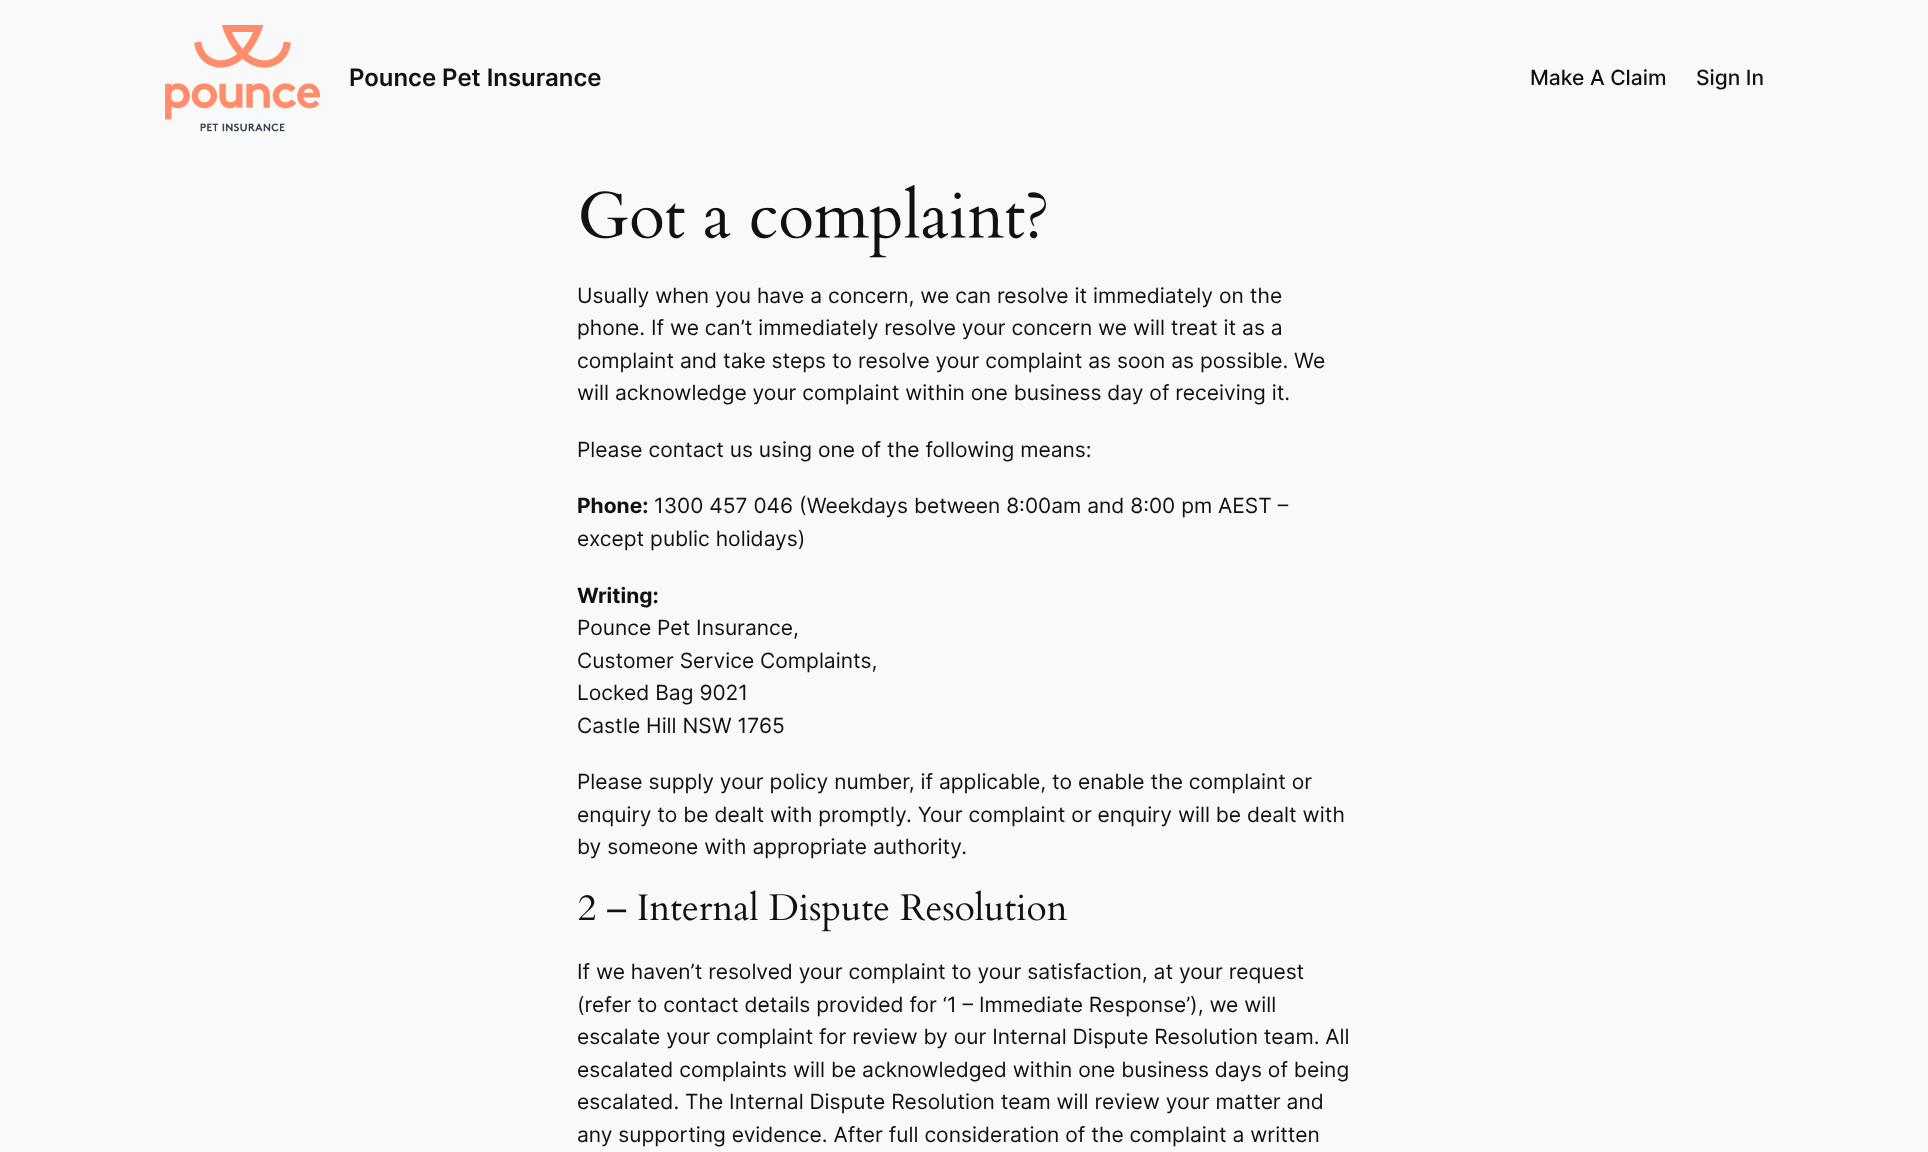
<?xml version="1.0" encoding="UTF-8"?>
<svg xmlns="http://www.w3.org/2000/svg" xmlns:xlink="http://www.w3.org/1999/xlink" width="1928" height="1152">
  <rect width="100%" height="100%" fill="#f9f9f9" />
  <image x="165" y="25" width="155" height="107" xlink:href="image1.png" />
  <image x="581" y="185" width="465" height="73" xlink:href="image2.png" />
  <image x="578" y="890" width="490" height="42" xlink:href="image3.png" />
  <text x="349" y="86" style="font-family: Inter; font-size: 24px; font-weight: 600; fill: #111111">Pounce Pet Insurance</text>
  <text x="1530" y="85" style="font-family: Inter; font-size: 21px; font-weight: 500; fill: #111111">Make A Claim</text>
  <text x="1696" y="85" style="font-family: Inter; font-size: 21px; font-weight: 500; fill: #111111">Sign In</text>
  <text x="577" y="303" style="font-family: Inter; font-size: 21px; fill: #111111">Usually when you have a concern, we can resolve it immediately on the</text>
  <text x="577" y="335" style="font-family: Inter; font-size: 21px; fill: #111111">phone. If we can’t immediately resolve your concern we will treat it as a</text>
  <text x="577" y="368" style="font-family: Inter; font-size: 21px; fill: #111111">complaint and take steps to resolve your complaint as soon as possible. We</text>
  <text x="577" y="400" style="font-family: Inter; font-size: 21px; fill: #111111">will acknowledge your complaint within one business day of receiving it.</text>
  <text x="577" y="457" style="font-family: Inter; font-size: 21px; fill: #111111">Please contact us using one of the following means:</text>
  <text x="577" y="513" style="font-family: Inter; font-size: 21px; font-weight: bold; fill: #111111">Phone:</text>
  <text x="654" y="513" style="font-family: Inter; font-size: 21px; fill: #111111">1300 457 046 (Weekdays between 8:00am and 8:00 pm AEST –</text>
  <text x="577" y="546" style="font-family: Inter; font-size: 21px; fill: #111111">except public holidays)</text>
  <text x="577" y="603" style="font-family: Inter; font-size: 21px; font-weight: bold; fill: #111111">Writing:</text>
  <text x="577" y="635" style="font-family: Inter; font-size: 21px; fill: #111111">Pounce Pet Insurance,</text>
  <text x="577" y="668" style="font-family: Inter; font-size: 21px; fill: #111111">Customer Service Complaints,</text>
  <text x="577" y="700" style="font-family: Inter; font-size: 21px; fill: #111111">Locked Bag 9021</text>
  <text x="577" y="733" style="font-family: Inter; font-size: 21px; fill: #111111">Castle Hill NSW 1765</text>
  <text x="577" y="789" style="font-family: Inter; font-size: 21px; fill: #111111">Please supply your policy number, if applicable, to enable the complaint or</text>
  <text x="577" y="822" style="font-family: Inter; font-size: 21px; fill: #111111">enquiry to be dealt with promptly. Your complaint or enquiry will be dealt with</text>
  <text x="577" y="854" style="font-family: Inter; font-size: 21px; fill: #111111">by someone with appropriate authority.</text>
  <text x="577" y="979" style="font-family: Inter; font-size: 21px; fill: #111111">If we haven’t resolved your complaint to your satisfaction, at your request</text>
  <text x="577" y="1012" style="font-family: Inter; font-size: 21px; fill: #111111">(refer to contact details provided for ‘1 – Immediate Response’), we will</text>
  <text x="577" y="1044" style="font-family: Inter; font-size: 21px; fill: #111111">escalate your complaint for review by our Internal Dispute Resolution team. All</text>
  <text x="577" y="1077" style="font-family: Inter; font-size: 21px; fill: #111111">escalated complaints will be acknowledged within one business days of being</text>
  <text x="577" y="1109" style="font-family: Inter; font-size: 21px; fill: #111111">escalated. The Internal Dispute Resolution team will review your matter and</text>
  <text x="577" y="1142" style="font-family: Inter; font-size: 21px; fill: #111111">any supporting evidence. After full consideration of the complaint a written</text>
</svg>
